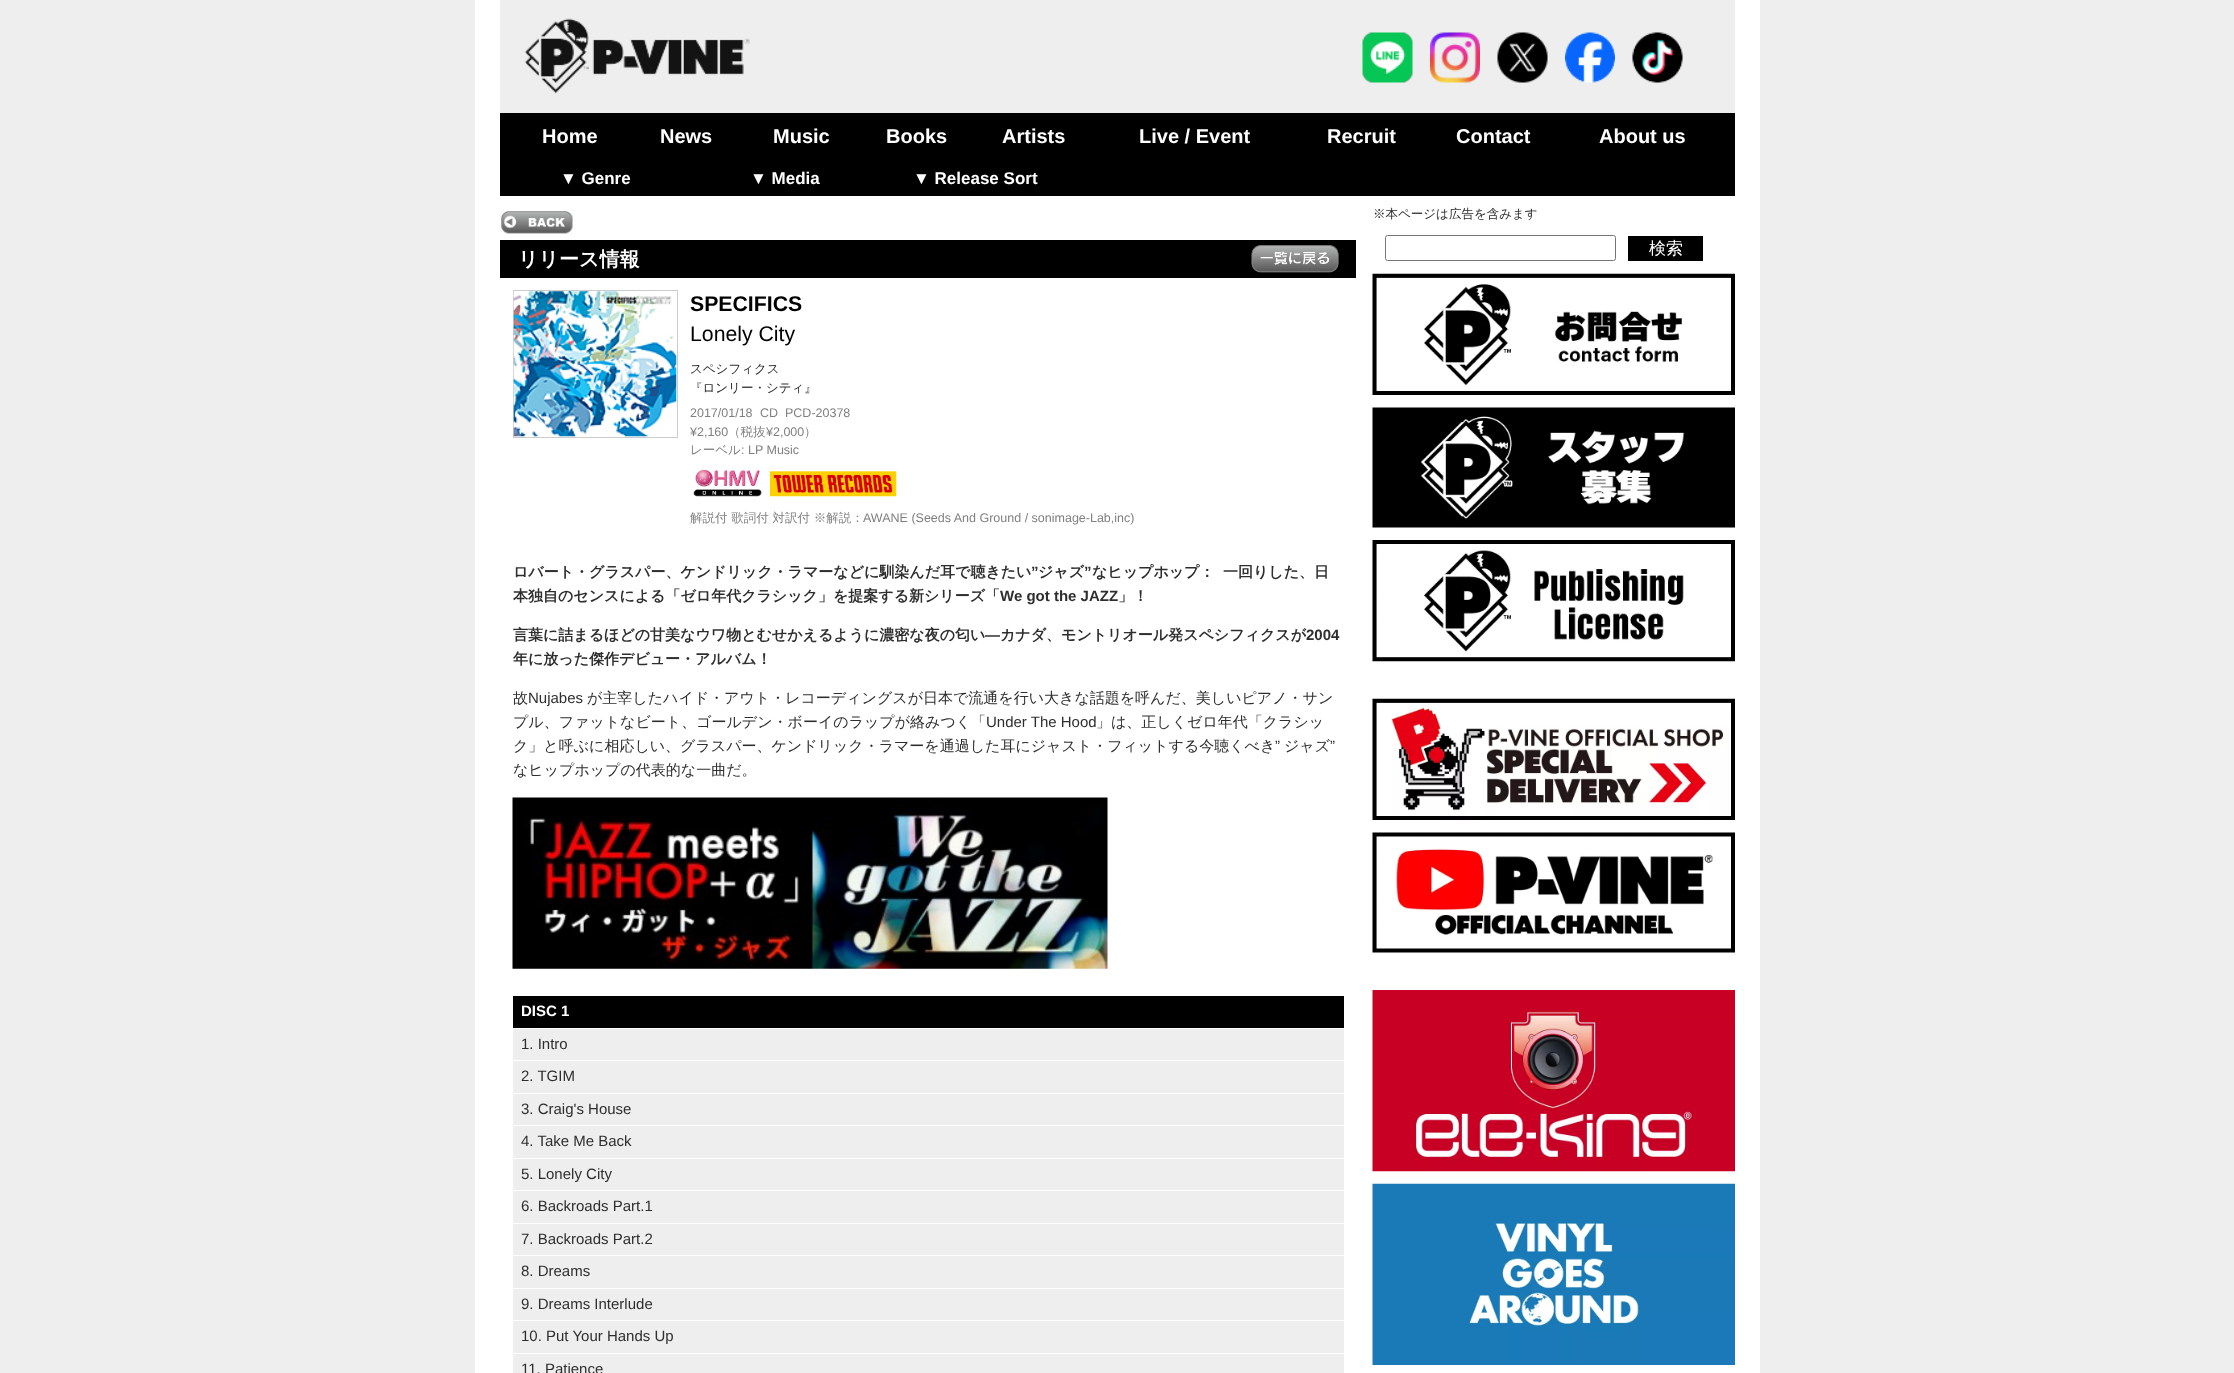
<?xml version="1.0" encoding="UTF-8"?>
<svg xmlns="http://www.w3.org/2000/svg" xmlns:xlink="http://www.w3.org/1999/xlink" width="2234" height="1373">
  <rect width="100%" height="100%" fill="#eeeeee" />
  <rect x="475" width="1285" height="1373" fill="#ffffff" />
  <rect x="500" width="1235" height="113" fill="#eeeeee" />
  <image x="524" y="18" width="226" height="76" xlink:href="image1.png" />
  <image x="1362" y="32" width="51" height="51" xlink:href="image2.png" />
  <image x="1430" y="32" width="50" height="51" xlink:href="image3.png" />
  <image x="1497" y="32" width="51" height="51" xlink:href="image4.png" />
  <image x="1565" y="32" width="50" height="51" xlink:href="image5.png" />
  <image x="1632" y="32" width="51" height="51" xlink:href="image6.png" />
  <rect x="500" y="113" width="1235" height="83" fill="#000000" />
  <rect x="1385.5" y="235.5" width="230" height="25" rx="2" fill="none" stroke="#767676" />
  <rect x="1628" y="236" width="75" height="25" fill="#000000" />
  <image x="1372" y="273" width="363" height="122" xlink:href="image7.png" />
  <image x="1372" y="407" width="363" height="121" xlink:href="image8.png" />
  <image x="1372" y="540" width="363" height="122" xlink:href="image9.png" />
  <image x="1372" y="698" width="363" height="122" xlink:href="image10.png" />
  <image x="1372" y="832" width="363" height="121" xlink:href="image11.png" />
  <image x="1372" y="990" width="363" height="182" xlink:href="image12.png" />
  <image x="1372" y="1183" width="363" height="182" xlink:href="image13.png" />
  <image x="501" y="211" width="72" height="23" xlink:href="image14.png" />
  <rect x="500" y="240" width="856" height="38" fill="#000000" />
  <image x="1251" y="245" width="88" height="28" xlink:href="image15.png" />
  <rect x="513.5" y="290.5" width="164" height="147" fill="none" stroke="#cccccc" />
  <image x="513" y="291" width="164" height="146" xlink:href="image16.png" />
  <image x="693" y="469" width="69" height="28" xlink:href="image17.png" />
  <image x="770" y="471" width="127" height="26" xlink:href="image18.png" />
  <image x="512" y="797" width="596" height="172" xlink:href="image19.png" />
  <rect x="513" y="996" width="831" height="32" fill="#000000" />
  <rect x="513" y="1029" width="831" height="31" fill="#eeeeee" />
  <rect x="513" y="1061" width="831" height="32" fill="#eeeeee" />
  <rect x="513" y="1094" width="831" height="31" fill="#eeeeee" />
  <rect x="513" y="1126" width="831" height="32" fill="#eeeeee" />
  <rect x="513" y="1159" width="831" height="31" fill="#eeeeee" />
  <rect x="513" y="1191" width="831" height="32" fill="#eeeeee" />
  <rect x="513" y="1224" width="831" height="31" fill="#eeeeee" />
  <rect x="513" y="1256" width="831" height="32" fill="#eeeeee" />
  <rect x="513" y="1289" width="831" height="31" fill="#eeeeee" />
  <rect x="513" y="1321" width="831" height="32" fill="#eeeeee" />
  <rect x="513" y="1354" width="831" height="19" fill="#eeeeee" />
  <text x="542" y="143" style="font-family: Liberation Sans; font-size: 20px; font-weight: bold; fill: #ffffff">Home</text>
  <text x="660" y="143" style="font-family: Liberation Sans; font-size: 20px; font-weight: bold; fill: #ffffff">News</text>
  <text x="773" y="143" style="font-family: Liberation Sans; font-size: 20px; font-weight: bold; fill: #ffffff">Music</text>
  <text x="886" y="143" style="font-family: Liberation Sans; font-size: 20px; font-weight: bold; fill: #ffffff">Books</text>
  <text x="1002" y="143" style="font-family: Liberation Sans; font-size: 20px; font-weight: bold; fill: #ffffff">Artists</text>
  <text x="1139" y="143" style="font-family: Liberation Sans; font-size: 20px; font-weight: bold; fill: #ffffff">Live / Event</text>
  <text x="1327" y="143" style="font-family: Liberation Sans; font-size: 20px; font-weight: bold; fill: #ffffff">Recruit</text>
  <text x="1456" y="143" style="font-family: Liberation Sans; font-size: 20px; font-weight: bold; fill: #ffffff">Contact</text>
  <text x="1599" y="143" style="font-family: Liberation Sans; font-size: 20px; font-weight: bold; fill: #ffffff">About us</text>
  <text x="560" y="184" style="font-family: Liberation Sans; font-size: 17px; font-weight: bold; fill: #ffffff">▼ Genre</text>
  <text x="750" y="184" style="font-family: Liberation Sans; font-size: 17px; font-weight: bold; fill: #ffffff">▼ Media</text>
  <text x="913" y="184" style="font-family: Liberation Sans; font-size: 17px; font-weight: bold; fill: #ffffff">▼ Release Sort</text>
  <text x="1373" y="218" style="font-family: WenQuanYi Zen Hei; font-size: 12.5px; font-weight: 500; fill: #2e2e2e">※本ページは広告を含みます</text>
  <text x="1649" y="254" style="font-family: WenQuanYi Zen Hei; font-size: 17px; font-weight: 500; fill: #ffffff">検索</text>
  <text x="518" y="266" style="font-family: WenQuanYi Zen Hei; font-size: 20px; font-weight: bold; fill: #ffffff">リリース情報</text>
  <text x="690" y="311" style="font-family: Liberation Sans; font-size: 21.25px; font-weight: bold; fill: #000000">SPECIFICS</text>
  <text x="690" y="341" style="font-family: Liberation Sans; font-size: 21.25px; fill: #000000">Lonely City</text>
  <text x="690" y="373" style="font-family: WenQuanYi Zen Hei; font-size: 12.5px; font-weight: 500; fill: #2e2e2e">スペシフィクス</text>
  <text x="690" y="392" style="font-family: WenQuanYi Zen Hei; font-size: 12.5px; font-weight: 500; fill: #2e2e2e">『ロンリー・シティ』</text>
  <text x="690" y="417" style="font-family: Liberation Sans; font-size: 12.5px; fill: #808080">2017/01/18</text>
  <text x="760" y="417" style="font-family: Liberation Sans; font-size: 12.5px; fill: #808080">CD</text>
  <text x="785" y="417" style="font-family: Liberation Sans; font-size: 12.5px; fill: #808080">PCD-20378</text>
  <text x="690" y="436" style="font-family: Liberation Sans; font-size: 12.5px; fill: #808080">¥2,160</text>
  <text x="728" y="436" style="font-family: WenQuanYi Zen Hei; font-size: 12.5px; font-weight: 500; fill: #808080">（税抜</text>
  <text x="766" y="436" style="font-family: Liberation Sans; font-size: 12.5px; fill: #808080">¥2,000</text>
  <text x="804" y="436" style="font-family: WenQuanYi Zen Hei; font-size: 12.5px; font-weight: 500; fill: #808080">）</text>
  <text x="690" y="454" style="font-family: WenQuanYi Zen Hei; font-size: 12.5px; font-weight: 500; fill: #808080">レーベル</text>
  <text x="741" y="454" style="font-family: Liberation Sans; font-size: 12.5px; fill: #808080">: LP Music</text>
  <text x="690" y="522" style="font-family: WenQuanYi Zen Hei; font-size: 12.5px; font-weight: 500; fill: #808080">解説付 歌詞付 対訳付 ※解説：</text>
  <text x="863" y="522" style="font-family: Liberation Sans; font-size: 12.5px; fill: #808080">AWANE (Seeds And Ground / sonimage-Lab,inc)</text>
  <text x="513" y="577" style="font-family: WenQuanYi Zen Hei; font-size: 15px; font-weight: bold; fill: #2e2e2e">ロバート・グラスパー、ケンドリック・ラマーなどに馴染んだ耳で聴きたい</text>
  <text x="1031" y="577" style="font-family: Liberation Sans; font-size: 15px; font-weight: bold; fill: #2e2e2e">”</text>
  <text x="1038" y="577" style="font-family: WenQuanYi Zen Hei; font-size: 15px; font-weight: bold; fill: #2e2e2e">ジャズ</text>
  <text x="1084" y="577" style="font-family: Liberation Sans; font-size: 15px; font-weight: bold; fill: #2e2e2e">”</text>
  <text x="1092" y="577" style="font-family: WenQuanYi Zen Hei; font-size: 15px; font-weight: bold; fill: #2e2e2e">なヒップホップ：</text>
  <text x="1223" y="577" style="font-family: WenQuanYi Zen Hei; font-size: 15px; font-weight: bold; fill: #2e2e2e">一回りした、日</text>
  <text x="513" y="601" style="font-family: WenQuanYi Zen Hei; font-size: 15px; font-weight: bold; fill: #2e2e2e">本独自のセンスによる「ゼロ年代クラシック」を提案する新シリーズ「</text>
  <text x="1000" y="601" style="font-family: Liberation Sans; font-size: 15px; font-weight: bold; fill: #2e2e2e">We got the JAZZ</text>
  <text x="1118" y="601" style="font-family: WenQuanYi Zen Hei; font-size: 15px; font-weight: bold; fill: #2e2e2e">」！</text>
  <text x="513" y="640" style="font-family: WenQuanYi Zen Hei; font-size: 15px; font-weight: bold; fill: #2e2e2e">言葉に詰まるほどの甘美なウワ物とむせかえるように濃密な夜の匂い</text>
  <text x="985" y="640" style="font-family: Liberation Sans; font-size: 15px; font-weight: bold; fill: #2e2e2e">―</text>
  <text x="1000" y="640" style="font-family: WenQuanYi Zen Hei; font-size: 15px; font-weight: bold; fill: #2e2e2e">カナダ、モントリオール発スペシフィクスが</text>
  <text x="1306" y="640" style="font-family: Liberation Sans; font-size: 15px; font-weight: bold; fill: #2e2e2e">2004</text>
  <text x="513" y="664" style="font-family: WenQuanYi Zen Hei; font-size: 15px; font-weight: bold; fill: #2e2e2e">年に放った傑作デビュー・アルバム！</text>
  <text x="513" y="703" style="font-family: WenQuanYi Zen Hei; font-size: 15px; font-weight: 500; fill: #2e2e2e">故</text>
  <text x="528" y="703" style="font-family: Liberation Sans; font-size: 15px; fill: #2e2e2e">Nujabes</text>
  <text x="587" y="703" style="font-family: WenQuanYi Zen Hei; font-size: 15px; font-weight: 500; fill: #2e2e2e">が主宰したハイド・アウト・レコーディングスが日本で流通を行い大きな話題を呼んだ、美しいピアノ・サン</text>
  <text x="513" y="727" style="font-family: WenQuanYi Zen Hei; font-size: 15px; font-weight: 500; fill: #2e2e2e">プル、ファットなビート、ゴールデン・ボーイのラップが絡みつく「</text>
  <text x="986" y="727" style="font-family: Liberation Sans; font-size: 15px; fill: #2e2e2e">Under The Hood</text>
  <text x="1096" y="727" style="font-family: WenQuanYi Zen Hei; font-size: 15px; font-weight: 500; fill: #2e2e2e">」は、正しくゼロ年代「クラシッ</text>
  <text x="513" y="751" style="font-family: WenQuanYi Zen Hei; font-size: 15px; font-weight: 500; fill: #2e2e2e">ク」と呼ぶに相応しい、グラスパー、ケンドリック・ラマーを通過した耳にジャスト・フィットする今聴くべき</text>
  <text x="1275" y="751" style="font-family: Liberation Sans; font-size: 15px; fill: #2e2e2e">”</text>
  <text x="1284" y="751" style="font-family: WenQuanYi Zen Hei; font-size: 15px; font-weight: 500; fill: #2e2e2e">ジャズ</text>
  <text x="1330" y="751" style="font-family: Liberation Sans; font-size: 15px; fill: #2e2e2e">”</text>
  <text x="513" y="775" style="font-family: WenQuanYi Zen Hei; font-size: 15px; font-weight: 500; fill: #2e2e2e">なヒップホップの代表的な一曲だ。</text>
  <text x="521" y="1016" style="font-family: Liberation Sans; font-size: 15px; font-weight: bold; fill: #ffffff">DISC 1</text>
  <text x="521" y="1049" style="font-family: Liberation Sans; font-size: 15px; fill: #2e2e2e">1. Intro</text>
  <text x="521" y="1081" style="font-family: Liberation Sans; font-size: 15px; fill: #2e2e2e">2. TGIM</text>
  <text x="521" y="1114" style="font-family: Liberation Sans; font-size: 15px; fill: #2e2e2e">3. Craig's House</text>
  <text x="521" y="1146" style="font-family: Liberation Sans; font-size: 15px; fill: #2e2e2e">4. Take Me Back</text>
  <text x="521" y="1179" style="font-family: Liberation Sans; font-size: 15px; fill: #2e2e2e">5. Lonely City</text>
  <text x="521" y="1211" style="font-family: Liberation Sans; font-size: 15px; fill: #2e2e2e">6. Backroads Part.1</text>
  <text x="521" y="1244" style="font-family: Liberation Sans; font-size: 15px; fill: #2e2e2e">7. Backroads Part.2</text>
  <text x="521" y="1276" style="font-family: Liberation Sans; font-size: 15px; fill: #2e2e2e">8. Dreams</text>
  <text x="521" y="1309" style="font-family: Liberation Sans; font-size: 15px; fill: #2e2e2e">9. Dreams Interlude</text>
  <text x="521" y="1341" style="font-family: Liberation Sans; font-size: 15px; fill: #2e2e2e">10. Put Your Hands Up</text>
  <text x="521" y="1374" style="font-family: Liberation Sans; font-size: 15px; fill: #2e2e2e">11. Patience</text>
</svg>
